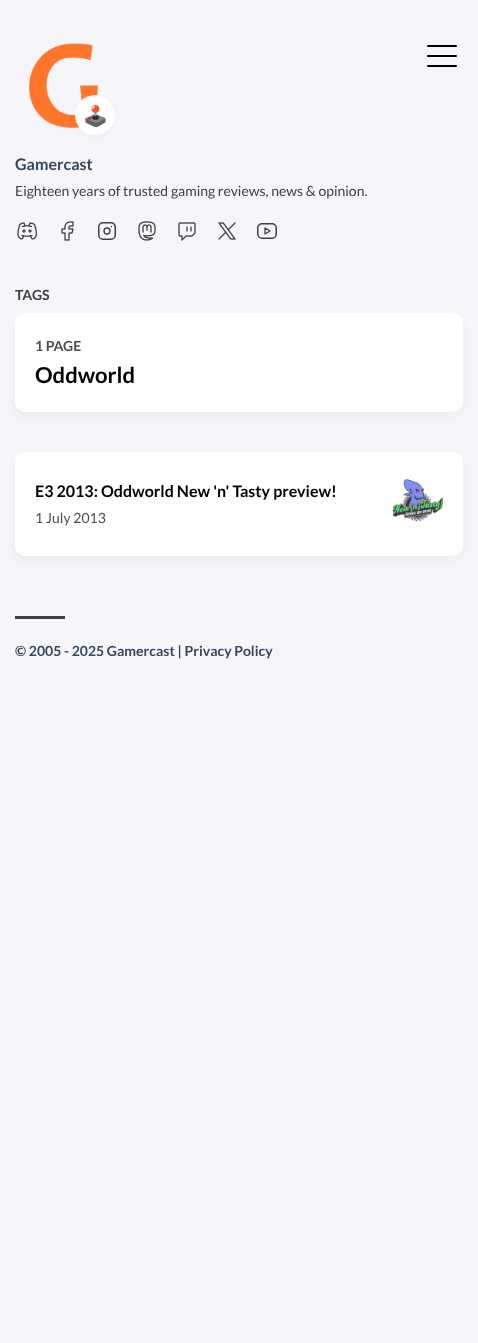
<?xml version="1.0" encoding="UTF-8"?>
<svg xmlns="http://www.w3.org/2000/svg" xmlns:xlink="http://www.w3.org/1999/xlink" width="478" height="1343">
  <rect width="100%" height="100%" fill="#f5f5fa" />
  <rect x="427" y="55" width="30" height="2" rx="1" fill="#000000" />
  <rect x="427" y="45" width="30" height="2" rx="1" fill="#000000" />
  <rect x="427" y="65" width="30" height="2" rx="1" fill="#000000" />
  <image x="29" y="43" width="69" height="85" xlink:href="image1.png" />
  <rect x="75" y="97" width="40" height="40" rx="20" fill="#000000" fill-opacity="0.04" filter="blur(3px)" />
  <circle cx="95" cy="115" r="20" fill="#ffffff" />
  <image x="17" y="222" width="20" height="18" xlink:href="image2.png" />
  <image x="61" y="221" width="13" height="20" xlink:href="image3.png" />
  <rect x="98.75" y="222.75" width="16.5" height="16.5" rx="4.25" fill="none" stroke="#404040" stroke-width="1.5" />
  <circle cx="107" cy="231" r="3" fill="none" stroke="#404040" stroke-width="1.3" />
  <path d="M 111.5 226.5 h 0" fill="none" stroke="#404040" stroke-width="1.3" stroke-linecap="round" stroke-linejoin="round" />
  <image x="138" y="221" width="18" height="20" xlink:href="image4.png" />
  <image x="178" y="222" width="18" height="19" xlink:href="image5.png" />
  <image x="218" y="222" width="18" height="18" xlink:href="image6.png" />
  <rect x="257.75" y="223.75" width="18.5" height="14.5" rx="4.25" fill="none" stroke="#404040" stroke-width="1.5" />
  <path d="M 265 228 l 5 3 l -5 3 z" fill="none" stroke="#404040" stroke-width="1.3" stroke-linecap="round" stroke-linejoin="round" />
  <rect x="15" y="317" width="448" height="99" rx="10" fill="#000000" fill-opacity="0.04" filter="blur(4px)" />
  <rect x="15" y="313" width="448" height="99" rx="10" fill="#ffffff" />
  <rect x="15" y="456" width="448" height="104" rx="10" fill="#000000" fill-opacity="0.04" filter="blur(4px)" />
  <rect x="15" y="452" width="448" height="104" rx="10" fill="#ffffff" />
  <image x="393" y="479" width="50" height="43" xlink:href="image7.png" />
  <rect x="15" y="616" width="50" height="3" fill="#404040" />
  <text x="83" y="123" style="font-family: Noto Color Emoji; font-size: 20px; fill: #000000">🕹️</text>
  <text x="15" y="170" style="font-family: Lato; font-size: 16px; font-weight: bold; fill: #34495e">Gamercast</text>
  <text x="15" y="196" style="font-family: Lato; font-size: 14px; fill: #404040">Eighteen years of trusted gaming reviews, news &amp; opinion.</text>
  <text x="15" y="300" style="font-family: Lato; font-size: 14px; font-weight: bold; fill: #404040">TAGS</text>
  <text x="35" y="351" style="font-family: Lato; font-size: 14px; font-weight: bold; fill: #4d4d4d">1 PAGE</text>
  <text x="35" y="383" style="font-family: Lato; font-size: 22px; font-weight: bold; fill: #000000">Oddworld</text>
  <text x="35" y="497" style="font-family: Lato; font-size: 16px; font-weight: bold; fill: #000000">E3 2013: Oddworld New 'n' Tasty preview!</text>
  <text x="35" y="523" style="font-family: Lato; font-size: 14px; fill: #4d4d4d">1 July 2013</text>
  <text x="15" y="656" style="font-family: Lato; font-size: 14px; font-weight: bold; fill: #34495e">© 2005 - 2025 Gamercast | Privacy Policy</text>
</svg>
